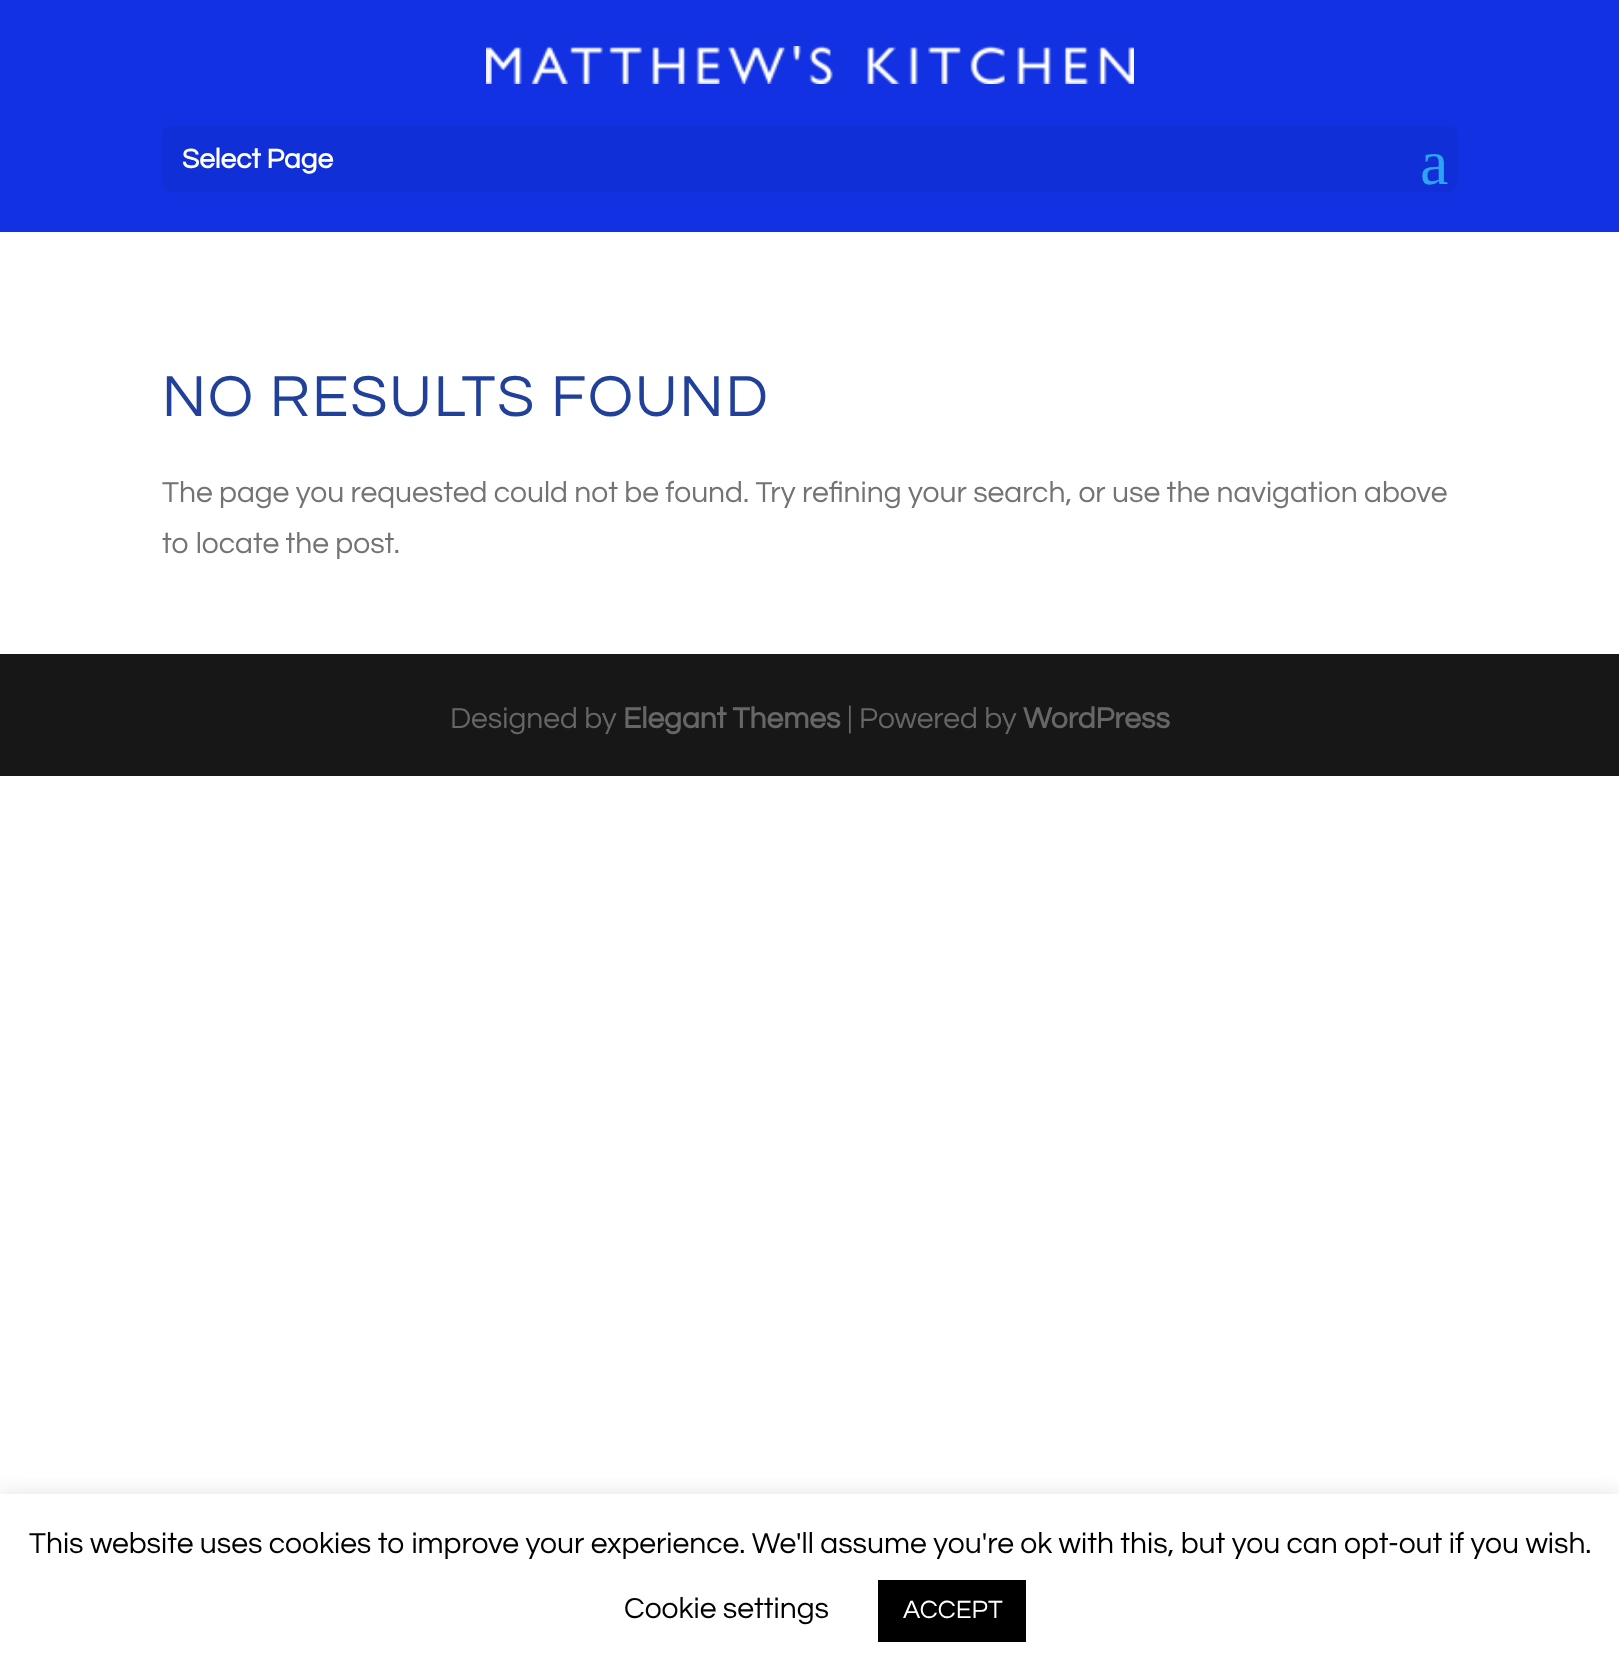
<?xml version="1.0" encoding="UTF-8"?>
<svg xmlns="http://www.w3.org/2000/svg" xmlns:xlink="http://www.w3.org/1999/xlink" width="1619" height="1676">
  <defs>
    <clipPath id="clip1"><rect x="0" y="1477" width="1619" height="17" /></clipPath>
  </defs>
  <rect width="100%" height="100%" fill="#ffffff" />
  <rect width="1619" height="232" fill="#1231e2" />
  <image x="486" y="46" width="648" height="38" xlink:href="image1.png" />
  <rect x="162" y="126" width="1296" height="66" rx="10" fill="#112fd7" />
  <rect y="654" width="1619" height="122" fill="#171717" />
  <g clip-path="url(#clip1)">
    <rect y="1492" width="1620" height="182" fill="#acabab" fill-opacity="0.3" filter="blur(10px)" />
  </g>
  <rect x="878" y="1580" width="148" height="62" fill="#000000" />
  <text x="182" y="168" style="font-family: Questrial; font-size: 28px; font-weight: bold; fill: #ffffff">Select Page</text>
  <text x="1420" y="184" style="font-family: Liberation Serif; font-size: 64px; fill: #2ea3f2">a</text>
  <text x="162" y="416" style="font-family: Questrial; font-size: 60px; letter-spacing: 2px; fill: #21409a">NO RESULTS FOUND</text>
  <text x="162" y="502" style="font-family: Questrial; font-size: 30px; fill: #737373">The page you requested could not be found. Try refining your search, or use the navigation above</text>
  <text x="162" y="553" style="font-family: Questrial; font-size: 30px; fill: #737373">to locate the post.</text>
  <text x="450" y="728" style="font-family: Questrial; font-size: 30px; fill: #666666">Designed by</text>
  <text x="623" y="728" style="font-family: Questrial; font-size: 30px; font-weight: bold; fill: #666666">Elegant Themes</text>
  <text x="847" y="728" style="font-family: Questrial; font-size: 30px; fill: #666666">| Powered by</text>
  <text x="1023" y="728" style="font-family: Questrial; font-size: 30px; font-weight: bold; fill: #666666">WordPress</text>
  <text x="29" y="1553" style="font-family: Questrial; font-size: 30px; fill: #000000">This website uses cookies to improve your experience. We'll assume you're ok with this, but you can opt-out if you wish.</text>
  <text x="624" y="1618" style="font-family: Questrial; font-size: 30px; fill: #000000">Cookie settings</text>
  <text x="903" y="1618" style="font-family: Questrial; font-size: 26px; fill: #ffffff">ACCEPT</text>
</svg>
